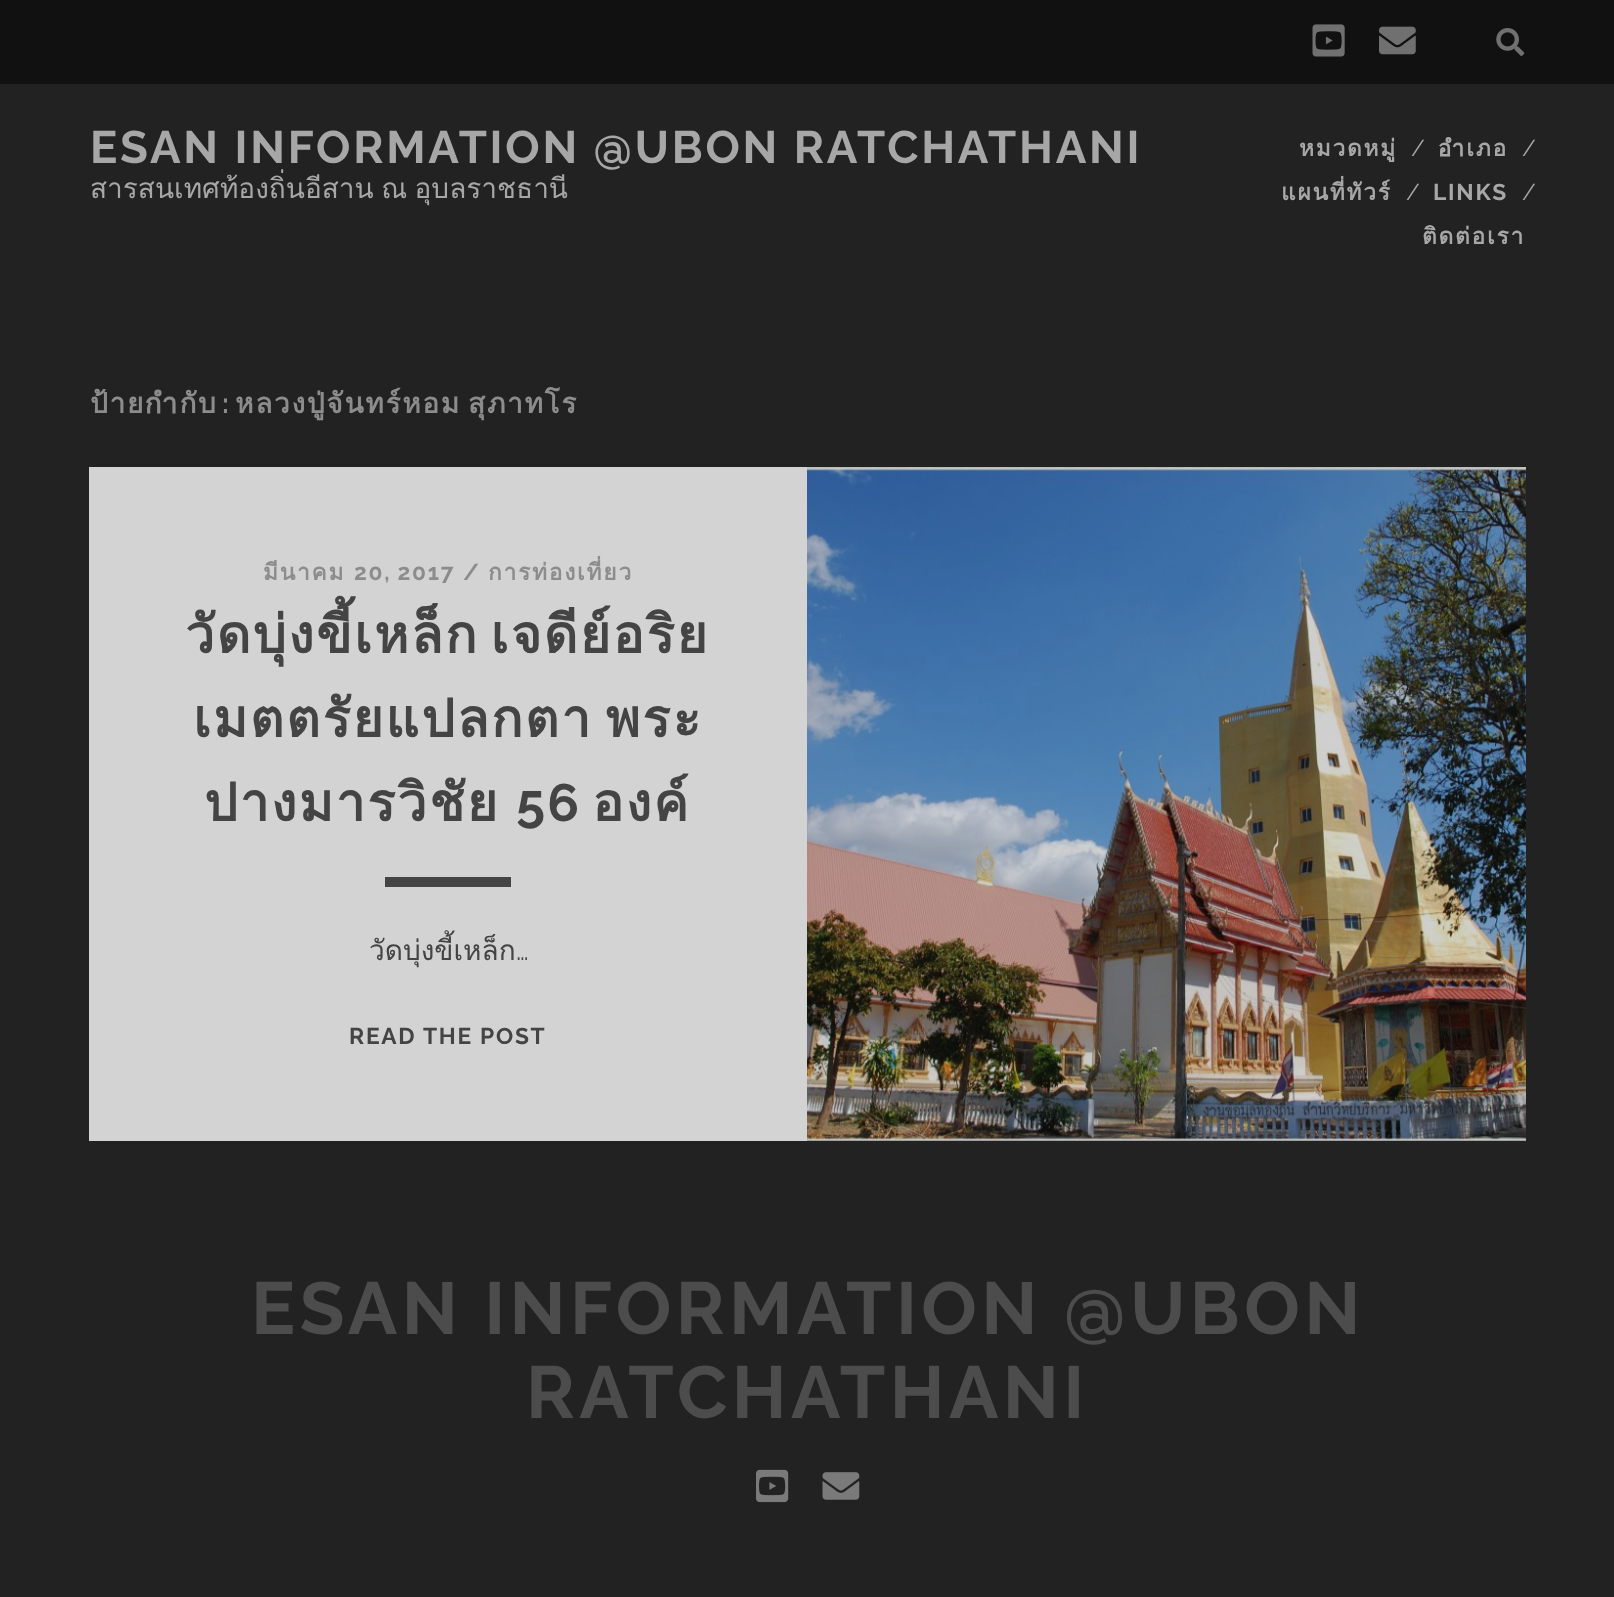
<?xml version="1.0" encoding="UTF-8"?>
<svg xmlns="http://www.w3.org/2000/svg" xmlns:xlink="http://www.w3.org/1999/xlink" width="1614" height="1597">
  <rect width="100%" height="100%" fill="#222222" />
  <rect width="1614" height="84" fill="#111111" />
  <image x="1312" y="24" width="33" height="33" xlink:href="image1.png" />
  <image x="1379" y="26" width="37" height="29" xlink:href="image2.png" />
  <image x="1496" y="28" width="29" height="28" xlink:href="image3.png" />
  <rect x="807" y="467" width="719" height="674" fill="#141414" />
  <rect x="89" y="467" width="718" height="674" fill="#d3d3d3" />
  <rect x="385" y="877" width="126" height="10" fill="#444444" />
  <image x="807" y="467" width="719" height="674" xlink:href="image4.png" />
  <image x="756" y="1469" width="33" height="34" xlink:href="image5.png" />
  <image x="822" y="1472" width="38" height="28" xlink:href="image6.png" />
  <text x="90" y="163" style="font-family: Raleway; font-size: 45.5px; font-weight: bold; letter-spacing: 2.75px; fill: #a7a7a7">ESAN INFORMATION @UBON RATCHATHANI</text>
  <text x="90" y="198" word-spacing="-2" style="font-family: Loma; font-size: 28px; fill: #a7a7a7">สารสนเทศท้องถิ่นอีสาน ณ อุบลราชธานี</text>
  <text x="1299" y="156" style="font-family: Loma; font-size: 22.75px; font-weight: bold; letter-spacing: 1.75px; fill: #a7a7a7">หมวดหมู่</text>
  <text x="1411" y="156" style="font-family: Raleway; font-size: 22.75px; fill: #a7a7a7">/</text>
  <text x="1438" y="156" style="font-family: Loma; font-size: 22.75px; font-weight: bold; letter-spacing: 1.75px; fill: #a7a7a7">อำเภอ</text>
  <text x="1522" y="156" style="font-family: Raleway; font-size: 22.75px; fill: #a7a7a7">/</text>
  <text x="1281" y="200" style="font-family: Loma; font-size: 22.75px; font-weight: bold; letter-spacing: 1.75px; fill: #a7a7a7">แผนที่ทัวร์</text>
  <text x="1406" y="200" style="font-family: Raleway; font-size: 22.75px; fill: #a7a7a7">/</text>
  <text x="1433" y="200" style="font-family: Raleway; font-size: 22.75px; font-weight: bold; letter-spacing: 1.75px; fill: #a7a7a7">LINKS</text>
  <text x="1522" y="200" style="font-family: Raleway; font-size: 22.75px; fill: #a7a7a7">/</text>
  <text x="1422" y="244" style="font-family: Loma; font-size: 22.75px; font-weight: bold; letter-spacing: 1.75px; fill: #a7a7a7">ติดต่อเรา</text>
  <text x="90" y="413" style="font-family: Loma; font-size: 28px; font-weight: bold; letter-spacing: 1.7px; fill: #8c8c8c">ป้ายกำกับ</text>
  <text x="222" y="413" style="font-family: Raleway; font-size: 28px; font-weight: bold; letter-spacing: 1.7px; fill: #8c8c8c">:</text>
  <text x="235" y="413" word-spacing="-4" style="font-family: Loma; font-size: 28px; font-weight: bold; letter-spacing: 1.7px; fill: #8c8c8c">หลวงปู่จันทร์หอม สุภาทโร</text>
  <text x="263" y="580" style="font-family: Loma; font-size: 22.75px; font-weight: bold; letter-spacing: 1.75px; fill: #8c8c8c">มีนาคม</text>
  <text x="354" y="580" word-spacing="-1" style="font-family: Raleway; font-size: 22.75px; font-weight: bold; letter-spacing: 1.75px; fill: #8c8c8c">20, 2017</text>
  <text x="463" y="580" style="font-family: Raleway; font-size: 22.75px; font-weight: bold; letter-spacing: 1.75px; fill: #8c8c8c">/</text>
  <text x="488" y="580" style="font-family: Loma; font-size: 22.75px; font-weight: bold; letter-spacing: 1.75px; fill: #8c8c8c">การท่องเที่ยว</text>
  <text x="185" y="653" word-spacing="-8" style="font-family: Loma; font-size: 52.5px; font-weight: bold; letter-spacing: 2.1px; fill: #444444">วัดบุ่งขี้เหล็ก เจดีย์อริย</text>
  <text x="193" y="737" word-spacing="-7" style="font-family: Loma; font-size: 52.5px; font-weight: bold; letter-spacing: 2.1px; fill: #444444">เมตตรัยแปลกตา พระ</text>
  <text x="204" y="821" style="font-family: Loma; font-size: 52.5px; font-weight: bold; letter-spacing: 2.1px; fill: #444444">ปางมารวิชัย</text>
  <text x="516" y="821" style="font-family: Raleway; font-size: 52.5px; font-weight: bold; letter-spacing: 2.1px; fill: #444444">56</text>
  <text x="592" y="821" style="font-family: Loma; font-size: 52.5px; font-weight: bold; letter-spacing: 2.1px; fill: #444444">องค์</text>
  <text x="369" y="960" style="font-family: Loma; font-size: 28px; fill: #444444">วัดบุ่งขี้เหล็ก</text>
  <text x="516" y="960" style="font-family: Raleway; font-size: 28px; fill: #444444">…</text>
  <text x="349" y="1044" style="font-family: Raleway; font-size: 22.75px; font-weight: bold; letter-spacing: 1.75px; fill: #444444">READ THE POST</text>
  <text x="251" y="1334" style="font-family: Raleway; font-size: 73.5px; font-weight: bold; letter-spacing: 4.4px; fill: #4c4c4c">ESAN INFORMATION @UBON</text>
  <text x="526" y="1418" style="font-family: Raleway; font-size: 73.5px; font-weight: bold; letter-spacing: 4.4px; fill: #4c4c4c">RATCHATHANI</text>
</svg>
